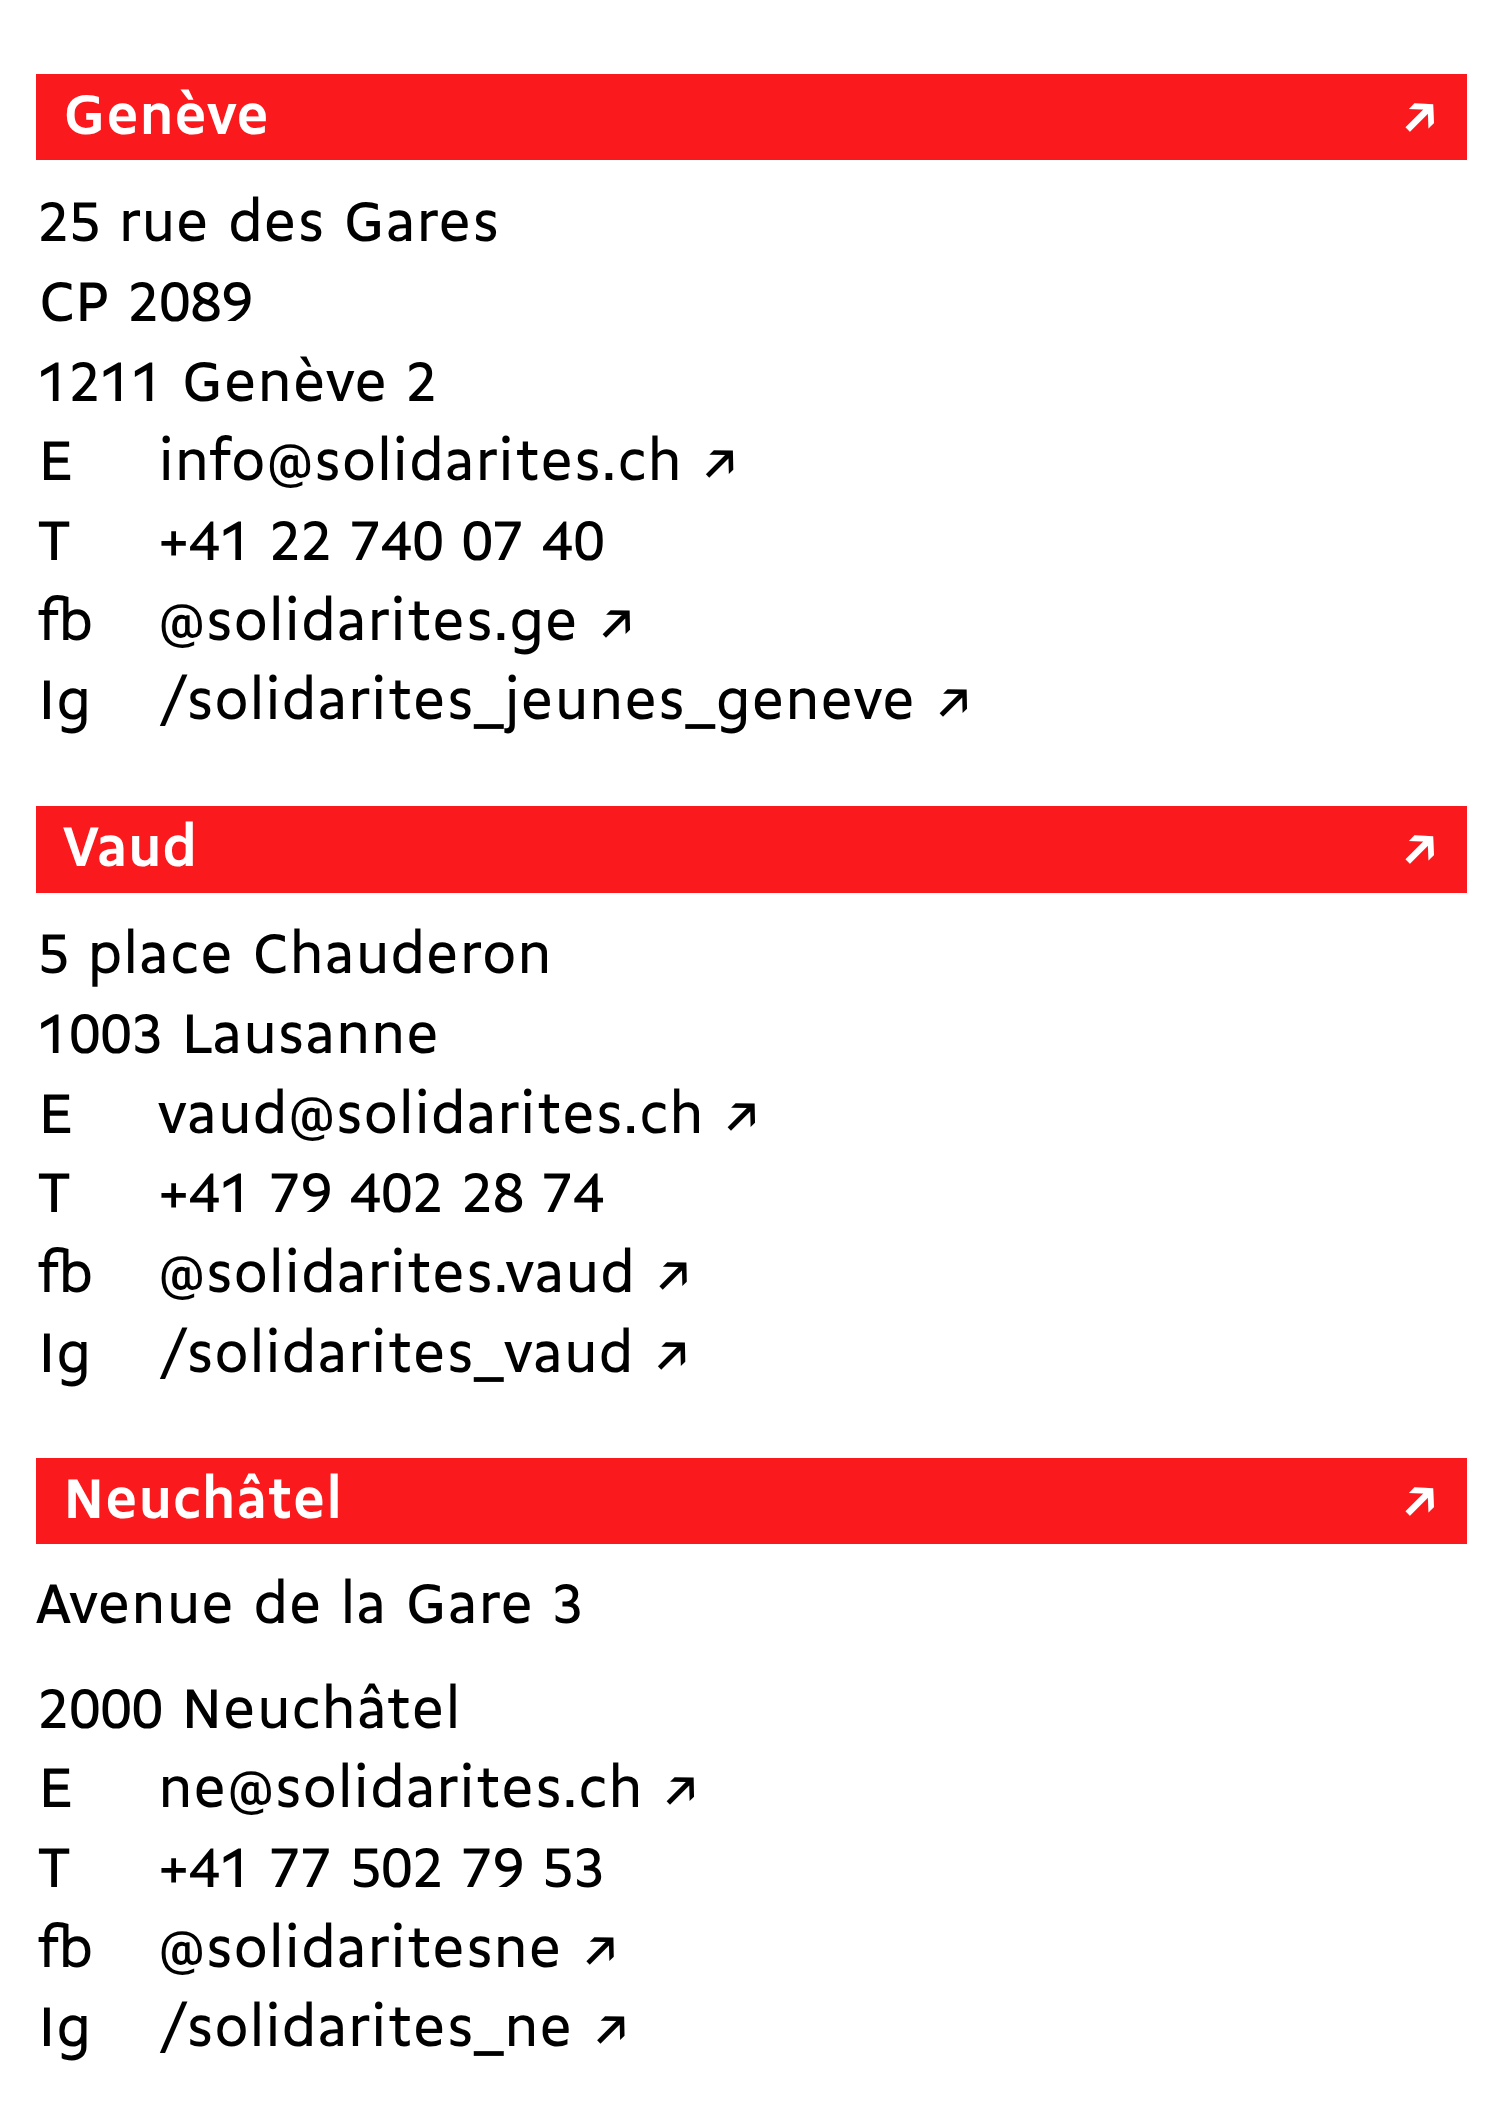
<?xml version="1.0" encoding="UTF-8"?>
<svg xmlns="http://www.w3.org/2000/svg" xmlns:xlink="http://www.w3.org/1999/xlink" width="1502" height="2107">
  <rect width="100%" height="100%" fill="#ffffff" />
  <rect x="36" y="74" width="1431" height="86" fill="#fa1a1d" />
  <rect x="36" y="806" width="1431" height="87" fill="#fa1a1d" />
  <rect x="36" y="1458" width="1431" height="86" fill="#fa1a1d" />
  <text x="63" y="134" style="font-family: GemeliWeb; font-size: 60.1px; font-weight: bold; fill: #ffffff">Genève</text>
  <text x="1400" y="134" style="font-family: GemeliWeb; font-size: 60.1px; font-weight: bold; fill: #ffffff">↗</text>
  <text x="38" y="241" style="font-family: GemeliWeb; font-size: 60.1px; fill: #000000">25 rue des Gares</text>
  <text x="38" y="321" style="font-family: GemeliWeb; font-size: 60.1px; fill: #000000">CP 2089</text>
  <text x="38" y="401" style="font-family: GemeliWeb; font-size: 60.1px; fill: #000000">1211 Genève 2</text>
  <text x="38" y="480" style="font-family: GemeliWeb; font-size: 60.1px; fill: #000000">E</text>
  <text x="158" y="480" style="font-family: GemeliWeb; font-size: 60.1px; fill: #000000">info@solidarites.ch ↗︎</text>
  <text x="38" y="560" style="font-family: GemeliWeb; font-size: 60.1px; fill: #000000">T</text>
  <text x="158" y="560" style="font-family: GemeliWeb; font-size: 60.1px; fill: #000000">+41 22 740 07 40</text>
  <text x="38" y="640" style="font-family: GemeliWeb; font-size: 60.1px; fill: #000000">fb</text>
  <text x="158" y="640" style="font-family: GemeliWeb; font-size: 60.1px; fill: #000000">@solidarites.ge ↗︎</text>
  <text x="38" y="719" style="font-family: GemeliWeb; font-size: 60.1px; fill: #000000">Ig</text>
  <text x="158" y="719" style="font-family: GemeliWeb; font-size: 60.1px; fill: #000000">/solidarites_jeunes_geneve ↗︎</text>
  <text x="63" y="866" style="font-family: GemeliWeb; font-size: 60.1px; font-weight: bold; fill: #ffffff">Vaud</text>
  <text x="1400" y="866" style="font-family: GemeliWeb; font-size: 60.1px; font-weight: bold; fill: #ffffff">↗</text>
  <text x="38" y="973" style="font-family: GemeliWeb; font-size: 60.1px; fill: #000000">5 place Chauderon</text>
  <text x="38" y="1053" style="font-family: GemeliWeb; font-size: 60.1px; fill: #000000">1003 Lausanne</text>
  <text x="38" y="1133" style="font-family: GemeliWeb; font-size: 60.1px; fill: #000000">E</text>
  <text x="158" y="1133" style="font-family: GemeliWeb; font-size: 60.1px; fill: #000000">vaud@solidarites.ch ↗︎</text>
  <text x="38" y="1212" style="font-family: GemeliWeb; font-size: 60.1px; fill: #000000">T</text>
  <text x="158" y="1212" style="font-family: GemeliWeb; font-size: 60.1px; fill: #000000">+41 79 402 28 74</text>
  <text x="38" y="1292" style="font-family: GemeliWeb; font-size: 60.1px; fill: #000000">fb</text>
  <text x="158" y="1292" style="font-family: GemeliWeb; font-size: 60.1px; fill: #000000">@solidarites.vaud ↗︎</text>
  <text x="38" y="1372" style="font-family: GemeliWeb; font-size: 60.1px; fill: #000000">Ig</text>
  <text x="158" y="1372" style="font-family: GemeliWeb; font-size: 60.1px; fill: #000000">/solidarites_vaud ↗︎</text>
  <text x="63" y="1518" style="font-family: GemeliWeb; font-size: 60.1px; font-weight: bold; fill: #ffffff">Neuchâtel</text>
  <text x="1400" y="1518" style="font-family: GemeliWeb; font-size: 60.1px; font-weight: bold; fill: #ffffff">↗</text>
  <text x="36" y="1623" style="font-family: GemeliWeb; font-size: 60.1px; fill: #000000">Avenue de la Gare 3</text>
  <text x="38" y="1728" style="font-family: GemeliWeb; font-size: 60.1px; fill: #000000">2000 Neuchâtel</text>
  <text x="38" y="1807" style="font-family: GemeliWeb; font-size: 60.1px; fill: #000000">E</text>
  <text x="158" y="1807" style="font-family: GemeliWeb; font-size: 60.1px; fill: #000000">ne@solidarites.ch ↗︎</text>
  <text x="38" y="1887" style="font-family: GemeliWeb; font-size: 60.1px; fill: #000000">T</text>
  <text x="158" y="1887" style="font-family: GemeliWeb; font-size: 60.1px; fill: #000000">+41 77 502 79 53</text>
  <text x="38" y="1967" style="font-family: GemeliWeb; font-size: 60.1px; fill: #000000">fb</text>
  <text x="158" y="1967" style="font-family: GemeliWeb; font-size: 60.1px; fill: #000000">@solidaritesne ↗︎</text>
  <text x="38" y="2046" style="font-family: GemeliWeb; font-size: 60.1px; fill: #000000">Ig</text>
  <text x="158" y="2046" style="font-family: GemeliWeb; font-size: 60.1px; fill: #000000">/solidarites_ne ↗︎</text>
</svg>
